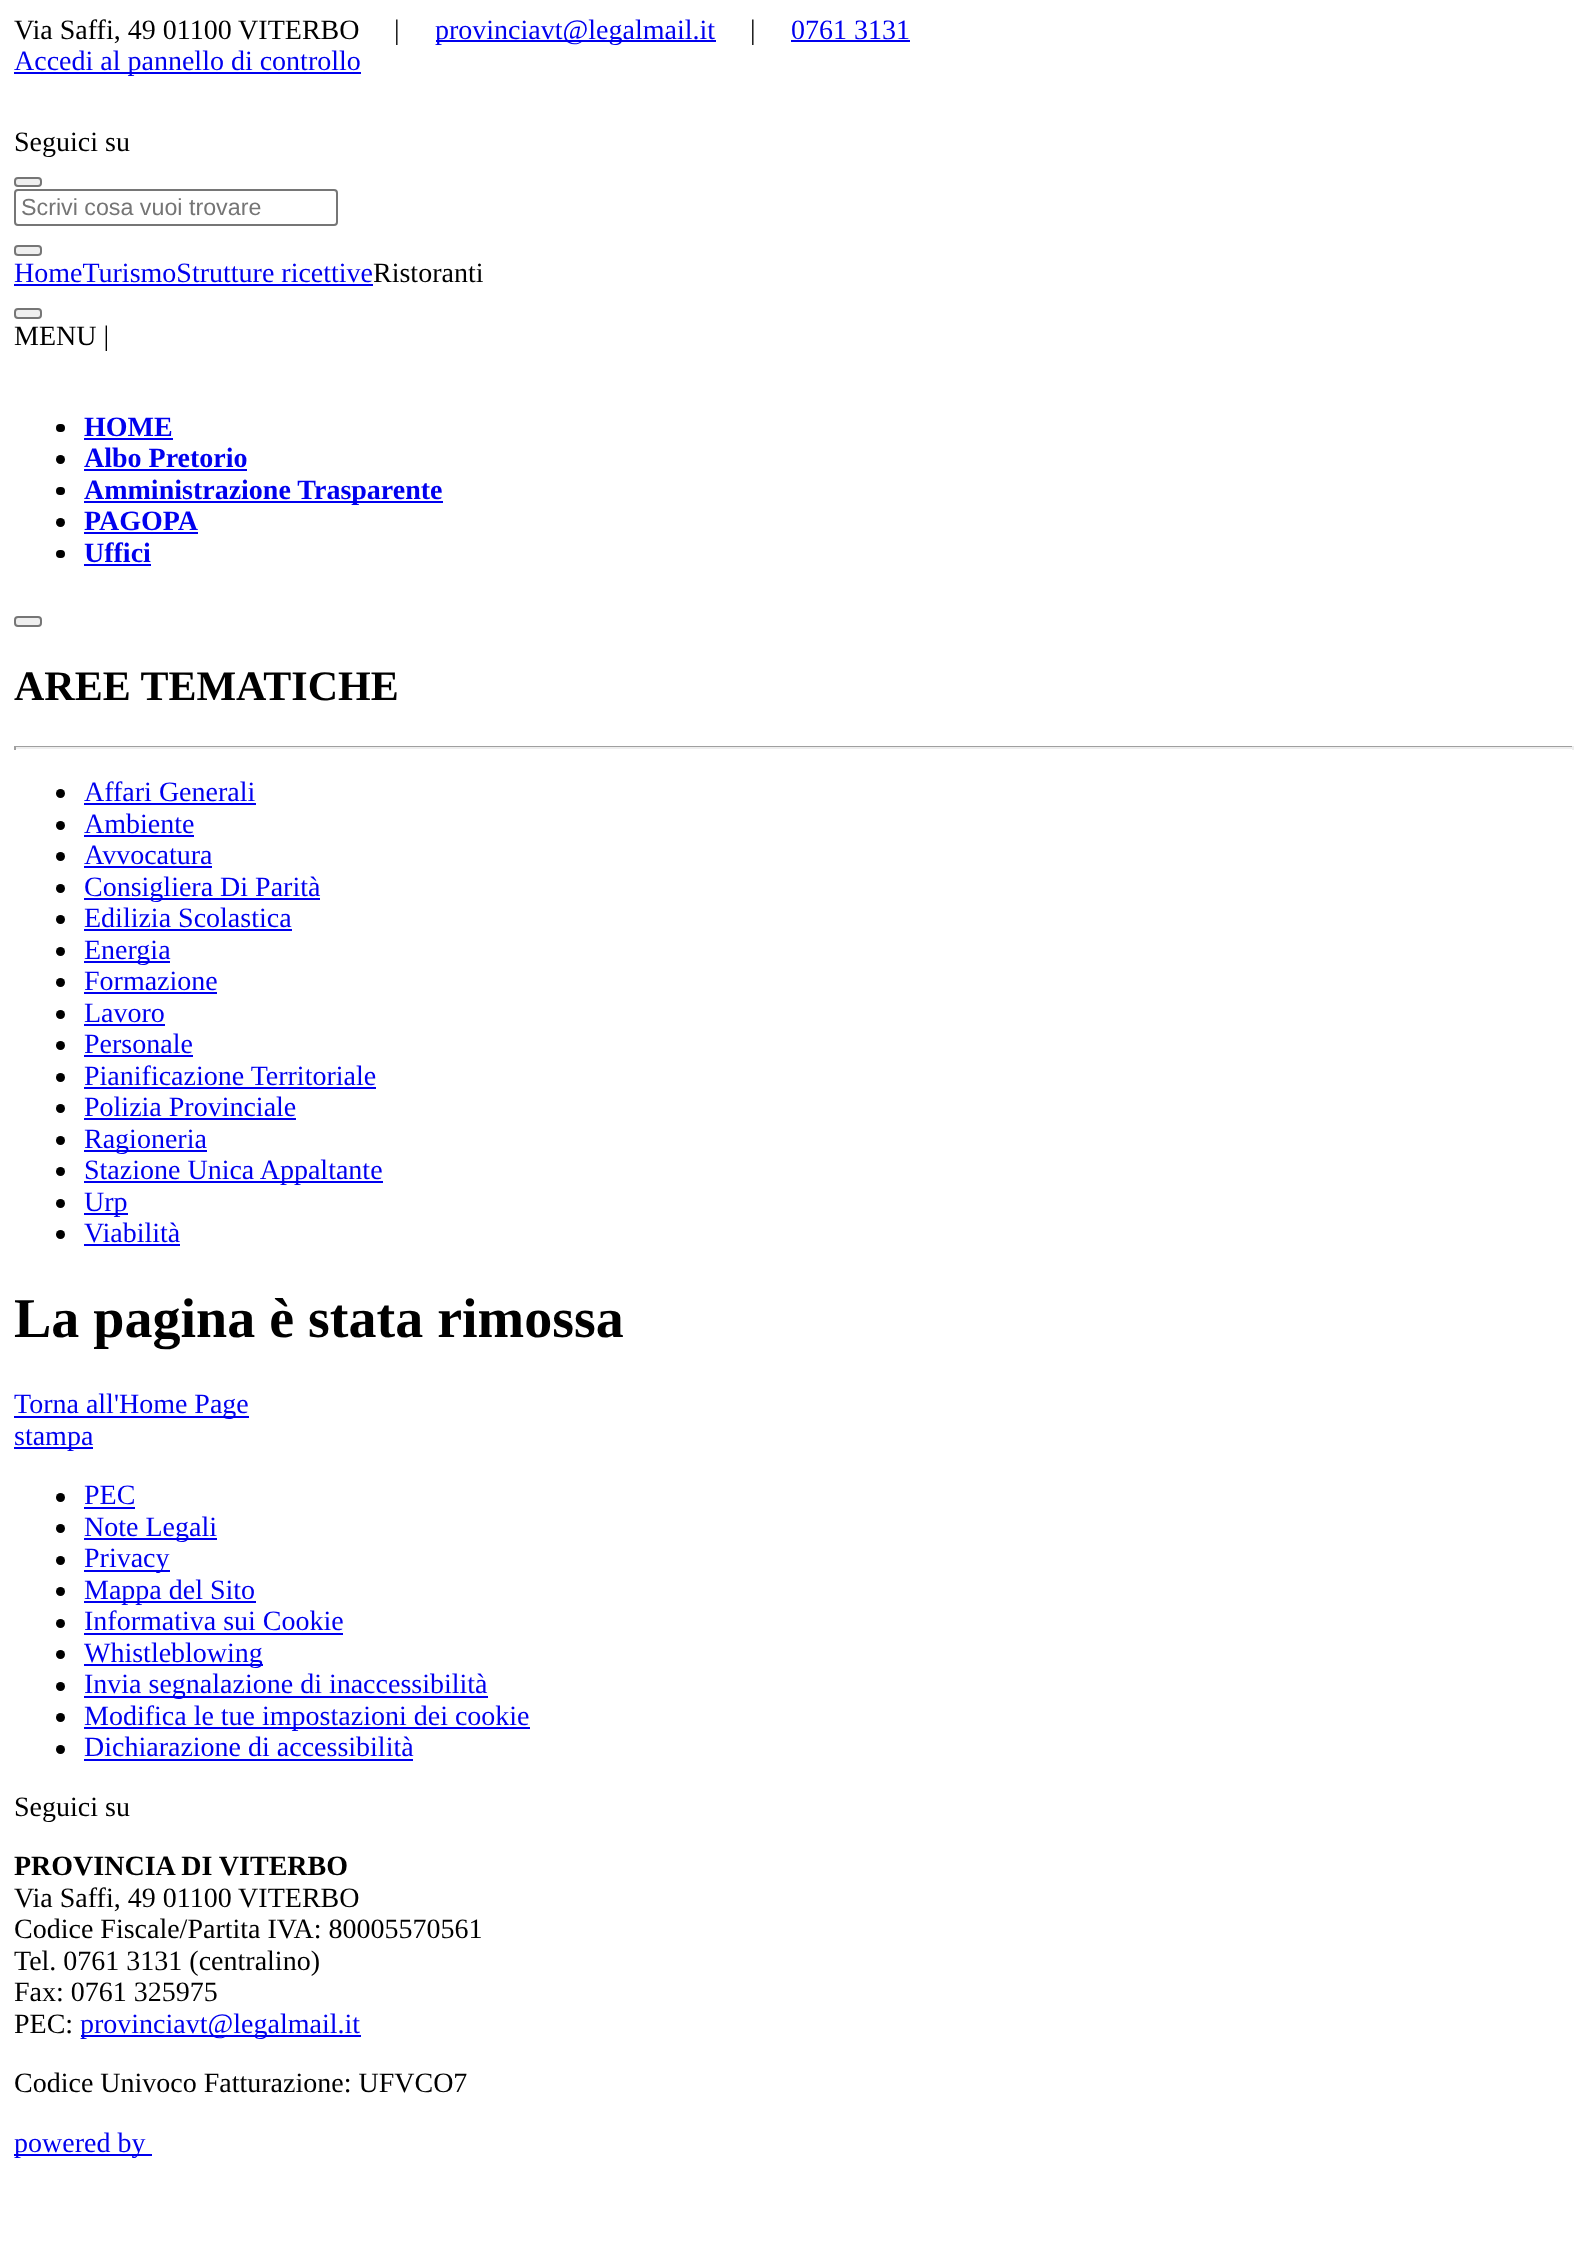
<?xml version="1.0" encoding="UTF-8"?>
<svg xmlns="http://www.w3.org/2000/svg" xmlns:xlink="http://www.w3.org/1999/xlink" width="1586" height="2251">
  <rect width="100%" height="100%" fill="#ffffff" />
  <rect x="436" y="40" width="280" height="2" fill="#0000ee" />
  <rect x="791" y="40" width="119" height="2" fill="#0000ee" />
  <rect x="14" y="72" width="347" height="2" fill="#0000ee" />
  <rect x="15" y="178" width="26" height="8" rx="3" fill="#efefef" stroke="#767676" stroke-width="2" />
  <rect x="15" y="190" width="322" height="35" rx="3" fill="none" stroke="#767676" stroke-width="2" />
  <rect x="15" y="246" width="26" height="9" rx="3" fill="#efefef" stroke="#767676" stroke-width="2" />
  <rect x="14" y="284" width="359" height="2" fill="#0000ee" />
  <rect x="15" y="309" width="26" height="9" rx="3" fill="#efefef" stroke="#767676" stroke-width="2" />
  <rect x="56" y="424" width="9" height="8" rx="4" fill="#000000" />
  <rect x="84" y="438" width="89" height="2" fill="#0000ee" />
  <circle cx="60.5" cy="459.5" r="4.5" fill="#000000" />
  <rect x="84" y="469" width="163" height="2" fill="#0000ee" />
  <rect x="56" y="487" width="9" height="8" rx="4" fill="#000000" />
  <rect x="84" y="501" width="359" height="2" fill="#0000ee" />
  <circle cx="60.5" cy="522.5" r="4.5" fill="#000000" />
  <rect x="84" y="532" width="114" height="2" fill="#0000ee" />
  <rect x="56" y="550" width="9" height="8" rx="4" fill="#000000" />
  <rect x="84" y="564" width="67" height="2" fill="#0000ee" />
  <rect x="15" y="617" width="26" height="9" rx="3" fill="#efefef" stroke="#767676" stroke-width="2" />
  <rect x="14" y="746" width="1559" height="1" fill="#9f9f9f" />
  <rect x="1572" y="746" width="2" height="4" fill="#eeeeee" />
  <rect x="14" y="747" width="1559" height="2" fill="#eeeeee" />
  <rect x="14" y="746" width="2" height="4" fill="#9f9f9f" />
  <circle cx="60.5" cy="793.5" r="4.5" fill="#000000" />
  <rect x="84" y="803" width="172" height="2" fill="#0000ee" />
  <circle cx="60.5" cy="825.5" r="4.5" fill="#000000" />
  <rect x="84" y="835" width="110" height="2" fill="#0000ee" />
  <circle cx="60.5" cy="856.5" r="4.5" fill="#000000" />
  <rect x="84" y="866" width="128" height="2" fill="#0000ee" />
  <circle cx="60.5" cy="888.5" r="4.5" fill="#000000" />
  <rect x="84" y="898" width="236" height="2" fill="#0000ee" />
  <circle cx="60.5" cy="919.5" r="4.5" fill="#000000" />
  <rect x="84" y="929" width="208" height="2" fill="#0000ee" />
  <circle cx="60.5" cy="951.5" r="4.5" fill="#000000" />
  <rect x="84" y="961" width="86" height="2" fill="#0000ee" />
  <circle cx="60.5" cy="982.5" r="4.5" fill="#000000" />
  <rect x="84" y="992" width="133" height="2" fill="#0000ee" />
  <circle cx="60.5" cy="1014.5" r="4.5" fill="#000000" />
  <rect x="84" y="1024" width="81" height="2" fill="#0000ee" />
  <circle cx="60.5" cy="1045.5" r="4.5" fill="#000000" />
  <rect x="84" y="1055" width="109" height="2" fill="#0000ee" />
  <circle cx="60.5" cy="1077.5" r="4.5" fill="#000000" />
  <rect x="84" y="1087" width="292" height="2" fill="#0000ee" />
  <circle cx="60.5" cy="1108.5" r="4.5" fill="#000000" />
  <rect x="84" y="1118" width="212" height="2" fill="#0000ee" />
  <circle cx="60.5" cy="1140.5" r="4.5" fill="#000000" />
  <rect x="84" y="1150" width="123" height="2" fill="#0000ee" />
  <circle cx="60.5" cy="1171.5" r="4.5" fill="#000000" />
  <rect x="84" y="1181" width="299" height="2" fill="#0000ee" />
  <circle cx="60.5" cy="1203.5" r="4.5" fill="#000000" />
  <rect x="84" y="1213" width="44" height="2" fill="#0000ee" />
  <circle cx="60.5" cy="1234.5" r="4.5" fill="#000000" />
  <rect x="84" y="1244" width="96" height="2" fill="#0000ee" />
  <rect x="14" y="1416" width="235" height="2" fill="#0000ee" />
  <rect x="14" y="1447" width="79" height="2" fill="#0000ee" />
  <circle cx="60.5" cy="1497.5" r="4.5" fill="#000000" />
  <rect x="84" y="1507" width="51" height="2" fill="#0000ee" />
  <circle cx="60.5" cy="1528.5" r="4.5" fill="#000000" />
  <rect x="84" y="1538" width="133" height="2" fill="#0000ee" />
  <circle cx="60.5" cy="1560.5" r="4.5" fill="#000000" />
  <rect x="84" y="1570" width="86" height="2" fill="#0000ee" />
  <circle cx="60.5" cy="1591.5" r="4.5" fill="#000000" />
  <rect x="84" y="1601" width="172" height="2" fill="#0000ee" />
  <circle cx="60.5" cy="1623.5" r="4.5" fill="#000000" />
  <rect x="84" y="1633" width="259" height="2" fill="#0000ee" />
  <circle cx="60.5" cy="1654.5" r="4.5" fill="#000000" />
  <rect x="84" y="1664" width="179" height="2" fill="#0000ee" />
  <circle cx="60.5" cy="1686.5" r="4.5" fill="#000000" />
  <rect x="84" y="1696" width="404" height="2" fill="#0000ee" />
  <circle cx="60.5" cy="1717.5" r="4.5" fill="#000000" />
  <rect x="84" y="1727" width="446" height="2" fill="#0000ee" />
  <circle cx="60.5" cy="1749.5" r="4.5" fill="#000000" />
  <rect x="84" y="1759" width="329" height="2" fill="#0000ee" />
  <rect x="81" y="2035" width="280" height="2" fill="#0000ee" />
  <rect x="14" y="2154" width="138" height="2" fill="#0000ee" />
  <text x="14" y="39" style="font-family: Liberation Serif; font-size: 28px; fill: #000000">Via Saffi, 49 01100 VITERBO</text>
  <text x="394" y="39" style="font-family: Liberation Serif; font-size: 28px; fill: #000000">|</text>
  <text x="435" y="39" style="font-family: Liberation Serif; font-size: 28px; fill: #0000ee">provinciavt@legalmail.it</text>
  <text x="750" y="39" style="font-family: Liberation Serif; font-size: 28px; fill: #000000">|</text>
  <text x="791" y="39" style="font-family: Liberation Serif; font-size: 28px; fill: #0000ee">0761 3131</text>
  <text x="14" y="70" style="font-family: Liberation Serif; font-size: 28px; fill: #0000ee">Accedi al pannello di controllo</text>
  <text x="14" y="151" style="font-family: Liberation Serif; font-size: 28px; fill: #000000">Seguici su</text>
  <text x="21" y="215" style="font-family: Liberation Sans; font-size: 23.25px; fill: #757575">Scrivi cosa vuoi trovare</text>
  <text x="14" y="282" style="font-family: Liberation Serif; font-size: 28px; fill: #0000ee">HomeTurismoStrutture ricettive</text>
  <text x="373" y="282" style="font-family: Liberation Serif; font-size: 28px; fill: #000000">Ristoranti</text>
  <text x="14" y="345" style="font-family: Liberation Serif; font-size: 28px; fill: #000000">MENU |</text>
  <text x="84" y="436" style="font-family: Liberation Serif; font-size: 28px; font-weight: bold; fill: #0000ee">HOME</text>
  <text x="84" y="467" style="font-family: Liberation Serif; font-size: 28px; font-weight: bold; fill: #0000ee">Albo Pretorio</text>
  <text x="84" y="499" style="font-family: Liberation Serif; font-size: 28px; font-weight: bold; fill: #0000ee">Amministrazione Trasparente</text>
  <text x="84" y="530" style="font-family: Liberation Serif; font-size: 28px; font-weight: bold; fill: #0000ee">PAGOPA</text>
  <text x="84" y="562" style="font-family: Liberation Serif; font-size: 28px; font-weight: bold; fill: #0000ee">Uffici</text>
  <text x="14" y="700" style="font-family: Liberation Serif; font-size: 42px; font-weight: bold; fill: #000000">AREE TEMATICHE</text>
  <text x="84" y="801" style="font-family: Liberation Serif; font-size: 28px; fill: #0000ee">Affari Generali</text>
  <text x="84" y="833" style="font-family: Liberation Serif; font-size: 28px; fill: #0000ee">Ambiente</text>
  <text x="84" y="864" style="font-family: Liberation Serif; font-size: 28px; fill: #0000ee">Avvocatura</text>
  <text x="84" y="896" style="font-family: Liberation Serif; font-size: 28px; fill: #0000ee">Consigliera Di Parità</text>
  <text x="84" y="927" style="font-family: Liberation Serif; font-size: 28px; fill: #0000ee">Edilizia Scolastica</text>
  <text x="84" y="959" style="font-family: Liberation Serif; font-size: 28px; fill: #0000ee">Energia</text>
  <text x="84" y="990" style="font-family: Liberation Serif; font-size: 28px; fill: #0000ee">Formazione</text>
  <text x="84" y="1022" style="font-family: Liberation Serif; font-size: 28px; fill: #0000ee">Lavoro</text>
  <text x="84" y="1053" style="font-family: Liberation Serif; font-size: 28px; fill: #0000ee">Personale</text>
  <text x="84" y="1085" style="font-family: Liberation Serif; font-size: 28px; fill: #0000ee">Pianificazione Territoriale</text>
  <text x="84" y="1116" style="font-family: Liberation Serif; font-size: 28px; fill: #0000ee">Polizia Provinciale</text>
  <text x="84" y="1148" style="font-family: Liberation Serif; font-size: 28px; fill: #0000ee">Ragioneria</text>
  <text x="84" y="1179" style="font-family: Liberation Serif; font-size: 28px; fill: #0000ee">Stazione Unica Appaltante</text>
  <text x="84" y="1211" style="font-family: Liberation Serif; font-size: 28px; fill: #0000ee">Urp</text>
  <text x="84" y="1242" style="font-family: Liberation Serif; font-size: 28px; fill: #0000ee">Viabilità</text>
  <text x="14" y="1337" style="font-family: Liberation Serif; font-size: 56px; font-weight: bold; fill: #000000">La pagina è stata rimossa</text>
  <text x="14" y="1413" style="font-family: Liberation Serif; font-size: 28px; fill: #0000ee">Torna all'Home Page</text>
  <text x="14" y="1445" style="font-family: Liberation Serif; font-size: 28px; fill: #0000ee">stampa</text>
  <text x="84" y="1504" style="font-family: Liberation Serif; font-size: 28px; fill: #0000ee">PEC</text>
  <text x="84" y="1536" style="font-family: Liberation Serif; font-size: 28px; fill: #0000ee">Note Legali</text>
  <text x="84" y="1567" style="font-family: Liberation Serif; font-size: 28px; fill: #0000ee">Privacy</text>
  <text x="84" y="1599" style="font-family: Liberation Serif; font-size: 28px; fill: #0000ee">Mappa del Sito</text>
  <text x="84" y="1630" style="font-family: Liberation Serif; font-size: 28px; fill: #0000ee">Informativa sui Cookie</text>
  <text x="84" y="1662" style="font-family: Liberation Serif; font-size: 28px; fill: #0000ee">Whistleblowing</text>
  <text x="84" y="1693" style="font-family: Liberation Serif; font-size: 28px; fill: #0000ee">Invia segnalazione di inaccessibilità</text>
  <text x="84" y="1725" style="font-family: Liberation Serif; font-size: 28px; fill: #0000ee">Modifica le tue impostazioni dei cookie</text>
  <text x="84" y="1756" style="font-family: Liberation Serif; font-size: 28px; fill: #0000ee">Dichiarazione di accessibilità</text>
  <text x="14" y="1816" style="font-family: Liberation Serif; font-size: 28px; fill: #000000">Seguici su</text>
  <text x="14" y="1875" style="font-family: Liberation Serif; font-size: 28px; font-weight: bold; fill: #000000">PROVINCIA DI VITERBO</text>
  <text x="14" y="1907" style="font-family: Liberation Serif; font-size: 28px; fill: #000000">Via Saffi, 49 01100 VITERBO</text>
  <text x="14" y="1938" style="font-family: Liberation Serif; font-size: 28px; fill: #000000">Codice Fiscale/Partita IVA: 80005570561</text>
  <text x="14" y="1970" style="font-family: Liberation Serif; font-size: 28px; fill: #000000">Tel. 0761 3131 (centralino)</text>
  <text x="14" y="2001" style="font-family: Liberation Serif; font-size: 28px; fill: #000000">Fax: 0761 325975</text>
  <text x="14" y="2033" style="font-family: Liberation Serif; font-size: 28px; fill: #000000">PEC:</text>
  <text x="80" y="2033" style="font-family: Liberation Serif; font-size: 28px; fill: #0000ee">provinciavt@legalmail.it</text>
  <text x="14" y="2092" style="font-family: Liberation Serif; font-size: 28px; fill: #000000">Codice Univoco Fatturazione: UFVCO7</text>
  <text x="14" y="2152" style="font-family: Liberation Serif; font-size: 28px; fill: #0000ee">powered by</text>
</svg>
